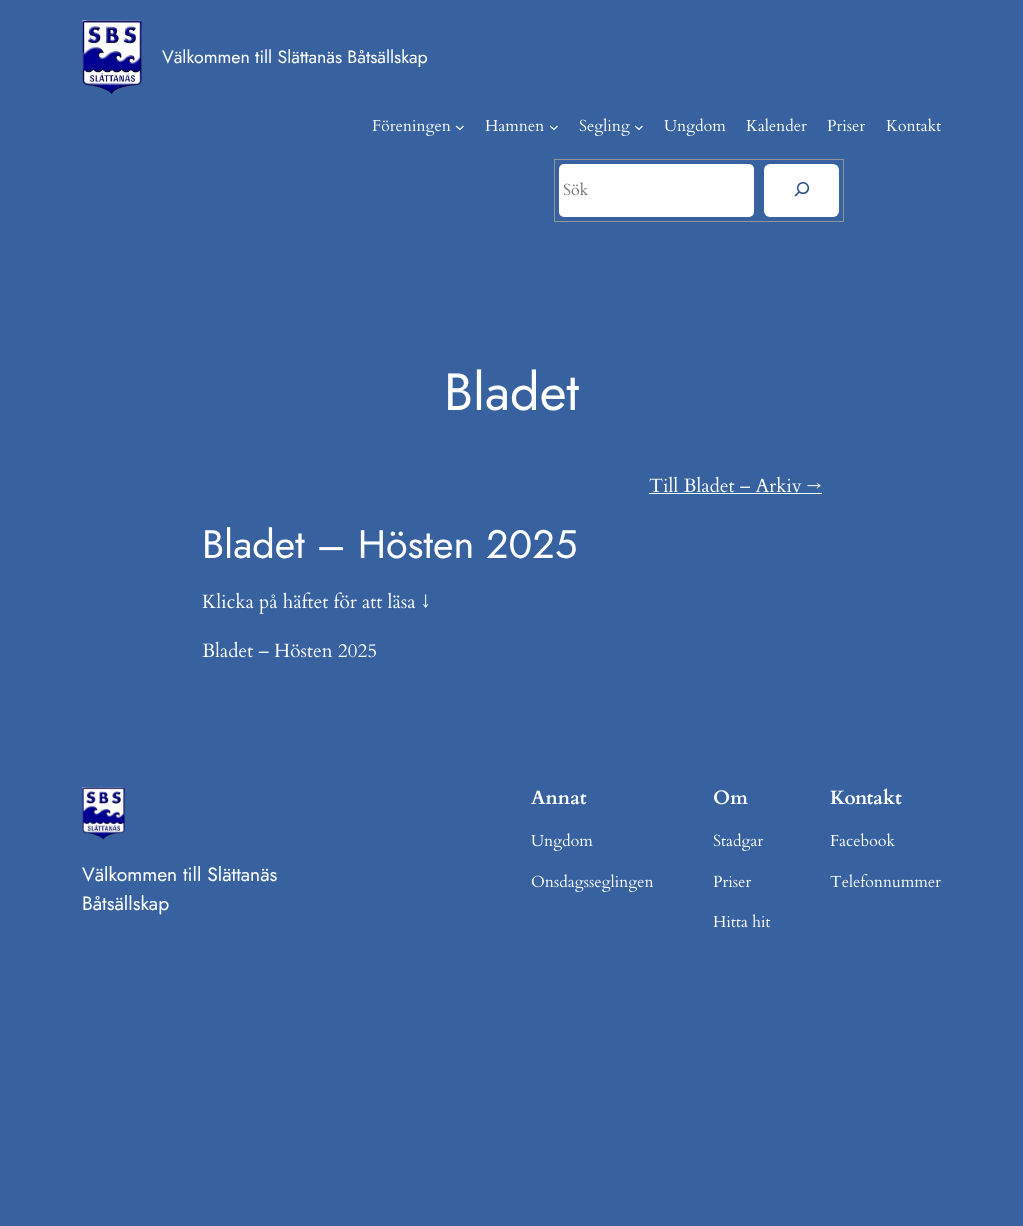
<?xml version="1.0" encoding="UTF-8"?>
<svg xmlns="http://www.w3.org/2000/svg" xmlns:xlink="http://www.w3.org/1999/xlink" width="1023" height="1226">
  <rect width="100%" height="100%" fill="#38629f" />
  <image x="82" y="20" width="60" height="75" xlink:href="image1.png" />
  <image x="372" y="120" width="79" height="16" xlink:href="image2.png" />
  <path d="M 456 126 l 4 3.5 l 3.5 -3.5" fill="none" stroke="#ffffff" stroke-width="1.2" />
  <image x="485" y="120" width="59" height="12" xlink:href="image3.png" />
  <path d="M 550 126 l 4 3.5 l 3.5 -3.5" fill="none" stroke="#ffffff" stroke-width="1.2" />
  <image x="579" y="118" width="51" height="18" xlink:href="image4.png" />
  <path d="M 635 126 l 4 3.5 l 3.5 -3.5" fill="none" stroke="#ffffff" stroke-width="1.2" />
  <image x="664" y="118" width="62" height="18" xlink:href="image5.png" />
  <image x="746" y="118" width="61" height="14" xlink:href="image6.png" />
  <image x="827" y="119" width="39" height="13" xlink:href="image7.png" />
  <image x="886" y="118" width="55" height="14" xlink:href="image8.png" />
  <rect x="554.5" y="159.5" width="289" height="62" fill="none" stroke="#949494" />
  <rect x="559" y="164" width="195" height="53" rx="5" fill="#ffffff" />
  <image x="563" y="182" width="25" height="14" xlink:href="image9.png" />
  <rect x="764" y="164" width="75" height="53" rx="6" fill="#ffffff" />
  <image x="794" y="182" width="16" height="15" xlink:href="image10.png" />
  <image x="649" y="476" width="172" height="17" xlink:href="image11.png" />
  <rect x="649" y="493" width="173" height="1" fill="#ffffff" />
  <image x="202" y="592" width="227" height="22" xlink:href="image12.png" />
  <image x="202" y="641" width="174" height="17" xlink:href="image13.png" />
  <image x="531" y="833" width="62" height="18" xlink:href="image5.png" />
  <image x="531" y="874" width="123" height="18" xlink:href="image14.png" />
  <image x="713" y="833" width="51" height="18" xlink:href="image15.png" />
  <image x="713" y="875" width="39" height="13" xlink:href="image7.png" />
  <image x="713" y="914" width="58" height="14" xlink:href="image16.png" />
  <image x="830" y="833" width="65" height="14" xlink:href="image17.png" />
  <image x="830" y="874" width="111" height="14" xlink:href="image18.png" />
  <image x="82" y="787" width="43" height="53" xlink:href="image19.png" />
  <text x="162" y="63" style="font-family: Jost; font-size: 17.75px; fill: #ffffff">Välkommen till Slättanäs Båtsällskap</text>
  <text x="444" y="410" style="font-family: Jost; font-size: 52px; fill: #ffffff">Bladet</text>
  <text x="202" y="558" style="font-family: Jost; font-size: 39.6px; fill: #ffffff">Bladet – Hösten 2025</text>
  <text x="531" y="804" style="font-family: Cardo; font-size: 19.25px; font-weight: bold; fill: #ffffff">Annat</text>
  <text x="713" y="804" style="font-family: Cardo; font-size: 19.25px; font-weight: bold; fill: #ffffff">Om</text>
  <text x="830" y="804" style="font-family: Cardo; font-size: 19.25px; font-weight: bold; fill: #ffffff">Kontakt</text>
  <text x="82" y="881" style="font-family: Jost; font-size: 19.25px; fill: #ffffff">Välkommen till Slättanäs</text>
  <text x="82" y="910" style="font-family: Jost; font-size: 19.25px; fill: #ffffff">Båtsällskap</text>
</svg>
